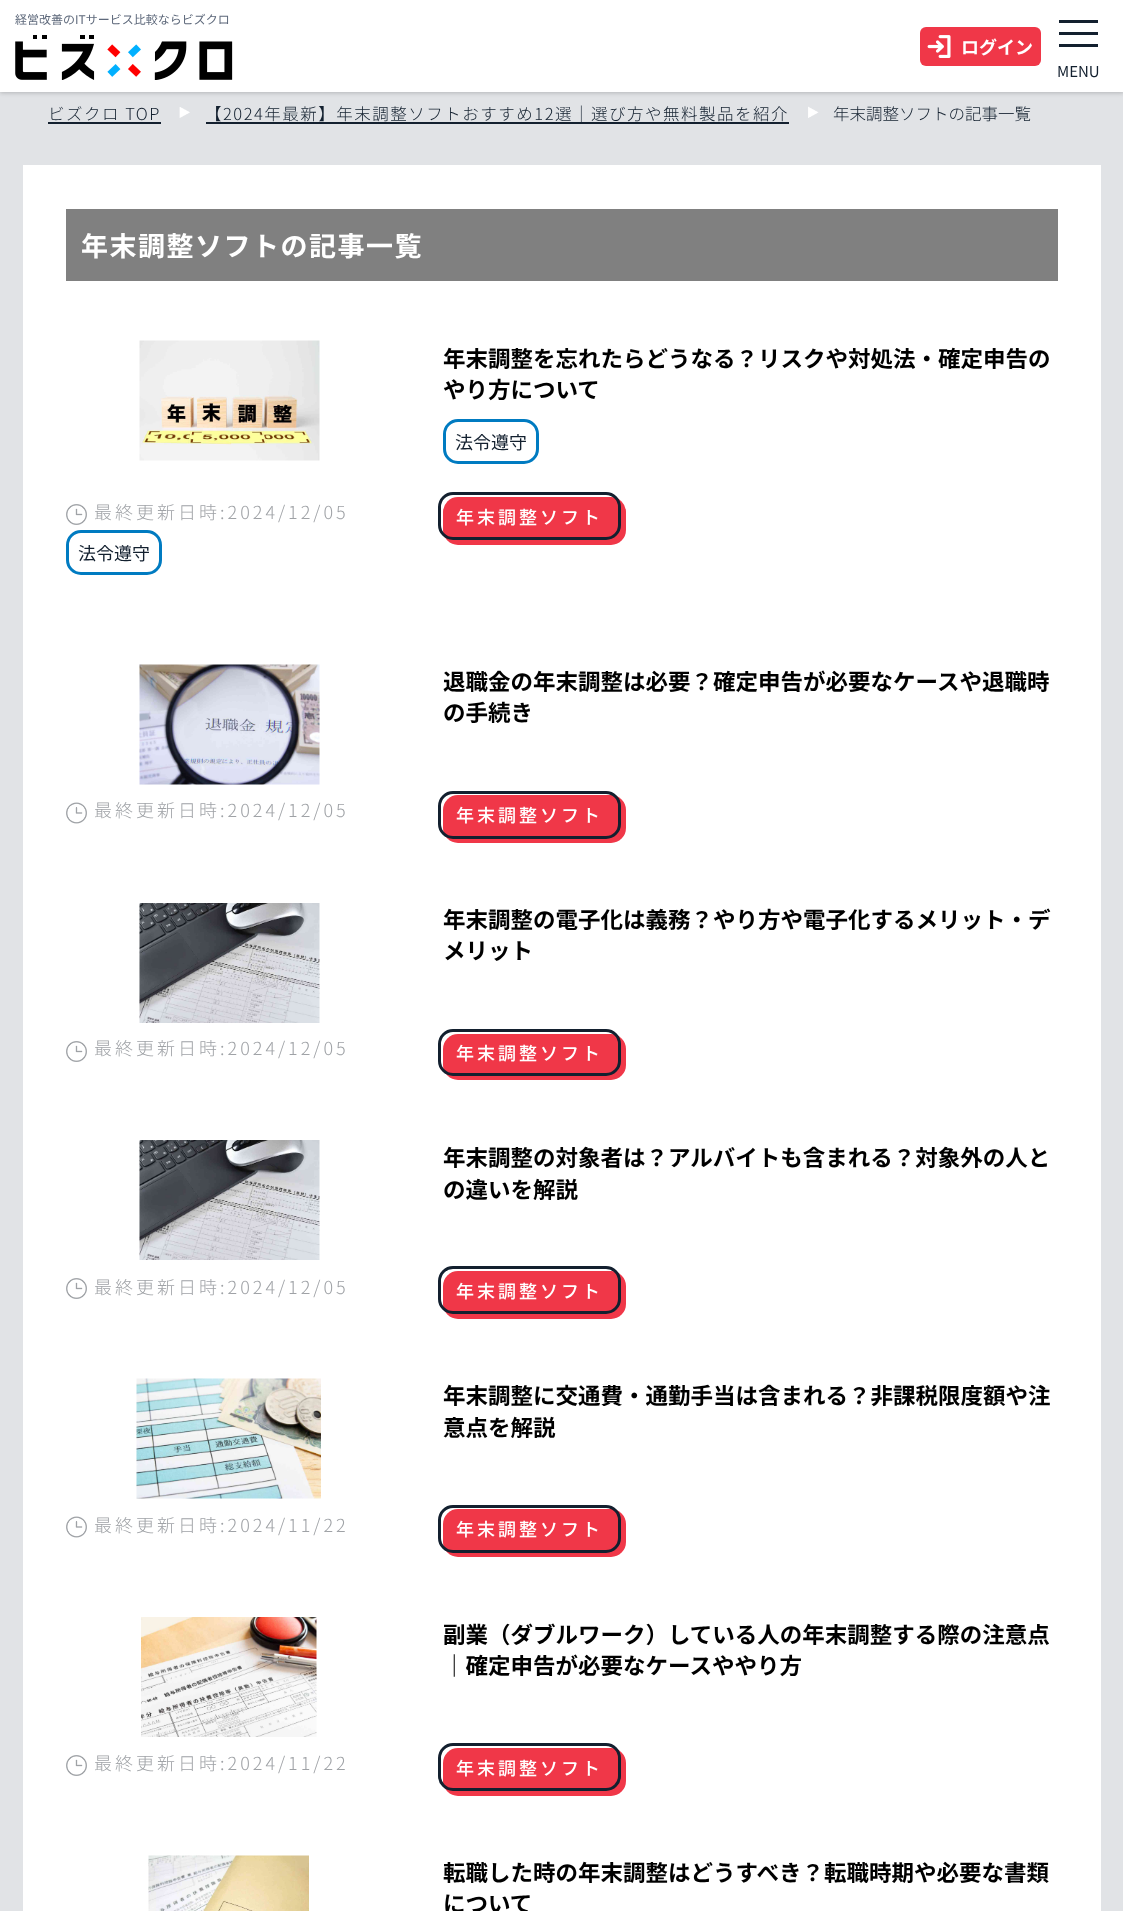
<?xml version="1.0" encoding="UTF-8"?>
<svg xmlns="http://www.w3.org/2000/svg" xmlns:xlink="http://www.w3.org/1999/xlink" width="1123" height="1911">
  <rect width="100%" height="100%" fill="#e1e3e6" />
  <rect width="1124" height="93" fill="#000000" fill-opacity="0.2" filter="blur(2px)" />
  <rect width="1123" height="92" fill="#ffffff" />
  <image x="15" y="35" width="218" height="45" xlink:href="image1.png" />
  <rect x="920" y="27" width="121" height="39" rx="6" fill="#f03748" />
  <image x="927" y="35" width="24" height="23" xlink:href="image2.png" />
  <rect x="1059" y="20" width="39" height="3" fill="#13202f" />
  <rect x="1059" y="32" width="39" height="3" fill="#13202f" />
  <rect x="1059" y="44" width="39" height="3" fill="#13202f" />
  <image x="179" y="107" width="11" height="11" xlink:href="image3.png" />
  <rect x="48" y="122" width="113" height="2" fill="#13202f" />
  <image x="808" y="106" width="11" height="12" xlink:href="image4.png" />
  <rect x="206" y="122" width="583" height="2" fill="#13202f" />
  <rect x="23" y="165" width="1078" height="1746" fill="#ffffff" />
  <rect x="66" y="209" width="992" height="72" fill="#808080" />
  <image x="139" y="340" width="181" height="121" xlink:href="image5.png" />
  <rect x="444.5" y="420.5" width="93" height="42" rx="13.5" fill="none" stroke="#007bc1" stroke-width="3" />
  <image x="66" y="504" width="21" height="21" xlink:href="image6.png" />
  <rect x="443" y="497" width="183" height="48" rx="15" fill="#f03748" />
  <rect x="439.5" y="493.5" width="180" height="45" rx="13.5" fill="none" stroke="#13202f" stroke-width="3" />
  <rect x="67.5" y="531.5" width="93" height="42" rx="13.5" fill="none" stroke="#007bc1" stroke-width="3" />
  <image x="139" y="664" width="181" height="121" xlink:href="image7.png" />
  <image x="66" y="802" width="21" height="22" xlink:href="image8.png" />
  <rect x="443" y="795" width="183" height="48" rx="15" fill="#f03748" />
  <rect x="439.5" y="792.5" width="180" height="45" rx="13.5" fill="none" stroke="#13202f" stroke-width="3" />
  <image x="139" y="903" width="181" height="120" xlink:href="image9.png" />
  <image x="66" y="1041" width="21" height="21" xlink:href="image6.png" />
  <rect x="443" y="1034" width="183" height="46" rx="15" fill="#f03748" />
  <rect x="439.5" y="1030.5" width="180" height="44" rx="13.5" fill="none" stroke="#13202f" stroke-width="3" />
  <image x="139" y="1140" width="181" height="120" xlink:href="image10.png" />
  <image x="66" y="1278" width="21" height="21" xlink:href="image6.png" />
  <rect x="443" y="1271" width="183" height="48" rx="15" fill="#f03748" />
  <rect x="439.5" y="1267.5" width="180" height="45" rx="13.5" fill="none" stroke="#13202f" stroke-width="3" />
  <image x="136" y="1378" width="185" height="121" xlink:href="image11.png" />
  <image x="66" y="1516" width="21" height="22" xlink:href="image8.png" />
  <rect x="443" y="1509" width="183" height="48" rx="15" fill="#f03748" />
  <rect x="439.5" y="1506.5" width="180" height="45" rx="13.5" fill="none" stroke="#13202f" stroke-width="3" />
  <image x="141" y="1617" width="176" height="120" xlink:href="image12.png" />
  <image x="66" y="1755" width="21" height="21" xlink:href="image6.png" />
  <rect x="443" y="1748" width="183" height="48" rx="15" fill="#f03748" />
  <rect x="439.5" y="1744.5" width="180" height="45" rx="13.5" fill="none" stroke="#13202f" stroke-width="3" />
  <image x="148" y="1855" width="161" height="56" xlink:href="image13.png" />
  <text x="15" y="24" style="font-family: Noto Sans JP; font-size: 12px; fill: #5e697b">経営改善のITサービス比較ならビズクロ</text>
  <text x="961" y="54" style="font-family: Noto Sans JP; font-size: 18px; font-weight: bold; fill: #ffffff">ログイン</text>
  <text x="1057" y="77" style="font-family: Noto Sans JP; font-size: 15px; fill: #13202f">MENU</text>
  <text x="48" y="120" style="font-family: Noto Sans JP; font-size: 16.5px; font-weight: 300; letter-spacing: 1.5px; fill: #13202f">ビズクロ TOP</text>
  <text x="205" y="120" style="font-family: Noto Sans JP; font-size: 16.5px; font-weight: 300; letter-spacing: 1.5px; fill: #13202f">【2024年最新】年末調整ソフトおすすめ12選｜選び方や無料製品を紹介</text>
  <text x="833" y="120" style="font-family: Noto Sans JP; font-size: 16.5px; font-weight: 300; fill: #13202f">年末調整ソフトの記事一覧</text>
  <text x="81" y="256" style="font-family: Noto Sans JP; font-size: 27px; font-weight: bold; letter-spacing: 1.5px; fill: #ffffff">年末調整ソフトの記事一覧</text>
  <text x="443" y="367" style="font-family: Noto Sans JP; font-size: 22.5px; font-weight: bold; fill: #000000">年末調整を忘れたらどうなる？リスクや対処法・確定申告の</text>
  <text x="443" y="398" style="font-family: Noto Sans JP; font-size: 22.5px; font-weight: bold; fill: #000000">やり方について</text>
  <text x="455" y="449" style="font-family: Noto Sans JP; font-size: 18px; fill: #13202f">法令遵守</text>
  <text x="94" y="519" style="font-family: Noto Sans JP; font-size: 18px; font-weight: 300; letter-spacing: 3px; fill: #9fa2a6">最終更新日時:2024/12/05</text>
  <text x="456" y="524" style="font-family: Noto Sans JP; font-size: 18px; font-weight: 500; letter-spacing: 3px; fill: #ffffff">年末調整ソフト</text>
  <text x="78" y="560" style="font-family: Noto Sans JP; font-size: 18px; fill: #13202f">法令遵守</text>
  <text x="443" y="690" style="font-family: Noto Sans JP; font-size: 22.5px; font-weight: bold; fill: #000000">退職金の年末調整は必要？確定申告が必要なケースや退職時</text>
  <text x="443" y="721" style="font-family: Noto Sans JP; font-size: 22.5px; font-weight: bold; fill: #000000">の手続き</text>
  <text x="94" y="817" style="font-family: Noto Sans JP; font-size: 18px; font-weight: 300; letter-spacing: 3px; fill: #9fa2a6">最終更新日時:2024/12/05</text>
  <text x="456" y="822" style="font-family: Noto Sans JP; font-size: 18px; font-weight: 500; letter-spacing: 3px; fill: #ffffff">年末調整ソフト</text>
  <text x="443" y="928" style="font-family: Noto Sans JP; font-size: 22.5px; font-weight: bold; fill: #000000">年末調整の電子化は義務？やり方や電子化するメリット・デ</text>
  <text x="443" y="959" style="font-family: Noto Sans JP; font-size: 22.5px; font-weight: bold; fill: #000000">メリット</text>
  <text x="94" y="1055" style="font-family: Noto Sans JP; font-size: 18px; font-weight: 300; letter-spacing: 3px; fill: #9fa2a6">最終更新日時:2024/12/05</text>
  <text x="456" y="1060" style="font-family: Noto Sans JP; font-size: 18px; font-weight: 500; letter-spacing: 3px; fill: #ffffff">年末調整ソフト</text>
  <text x="443" y="1166" style="font-family: Noto Sans JP; font-size: 22.5px; font-weight: bold; fill: #000000">年末調整の対象者は？アルバイトも含まれる？対象外の人と</text>
  <text x="443" y="1198" style="font-family: Noto Sans JP; font-size: 22.5px; font-weight: bold; fill: #000000">の違いを解説</text>
  <text x="94" y="1294" style="font-family: Noto Sans JP; font-size: 18px; font-weight: 300; letter-spacing: 3px; fill: #9fa2a6">最終更新日時:2024/12/05</text>
  <text x="456" y="1298" style="font-family: Noto Sans JP; font-size: 18px; font-weight: 500; letter-spacing: 3px; fill: #ffffff">年末調整ソフト</text>
  <text x="443" y="1404" style="font-family: Noto Sans JP; font-size: 22.5px; font-weight: bold; fill: #000000">年末調整に交通費・通勤手当は含まれる？非課税限度額や注</text>
  <text x="443" y="1436" style="font-family: Noto Sans JP; font-size: 22.5px; font-weight: bold; fill: #000000">意点を解説</text>
  <text x="94" y="1532" style="font-family: Noto Sans JP; font-size: 18px; font-weight: 300; letter-spacing: 3px; fill: #9fa2a6">最終更新日時:2024/11/22</text>
  <text x="456" y="1536" style="font-family: Noto Sans JP; font-size: 18px; font-weight: 500; letter-spacing: 3px; fill: #ffffff">年末調整ソフト</text>
  <text x="443" y="1643" style="font-family: Noto Sans JP; font-size: 22.5px; font-weight: bold; fill: #000000">副業（ダブルワーク）している人の年末調整する際の注意点</text>
  <text x="443" y="1674" style="font-family: Noto Sans JP; font-size: 22.5px; font-weight: bold; fill: #000000">｜確定申告が必要なケースややり方</text>
  <text x="94" y="1770" style="font-family: Noto Sans JP; font-size: 18px; font-weight: 300; letter-spacing: 3px; fill: #9fa2a6">最終更新日時:2024/11/22</text>
  <text x="456" y="1775" style="font-family: Noto Sans JP; font-size: 18px; font-weight: 500; letter-spacing: 3px; fill: #ffffff">年末調整ソフト</text>
  <text x="443" y="1881" style="font-family: Noto Sans JP; font-size: 22.5px; font-weight: bold; fill: #000000">転職した時の年末調整はどうすべき？転職時期や必要な書類</text>
  <text x="443" y="1912" style="font-family: Noto Sans JP; font-size: 22.5px; font-weight: bold; fill: #000000">について</text>
</svg>
